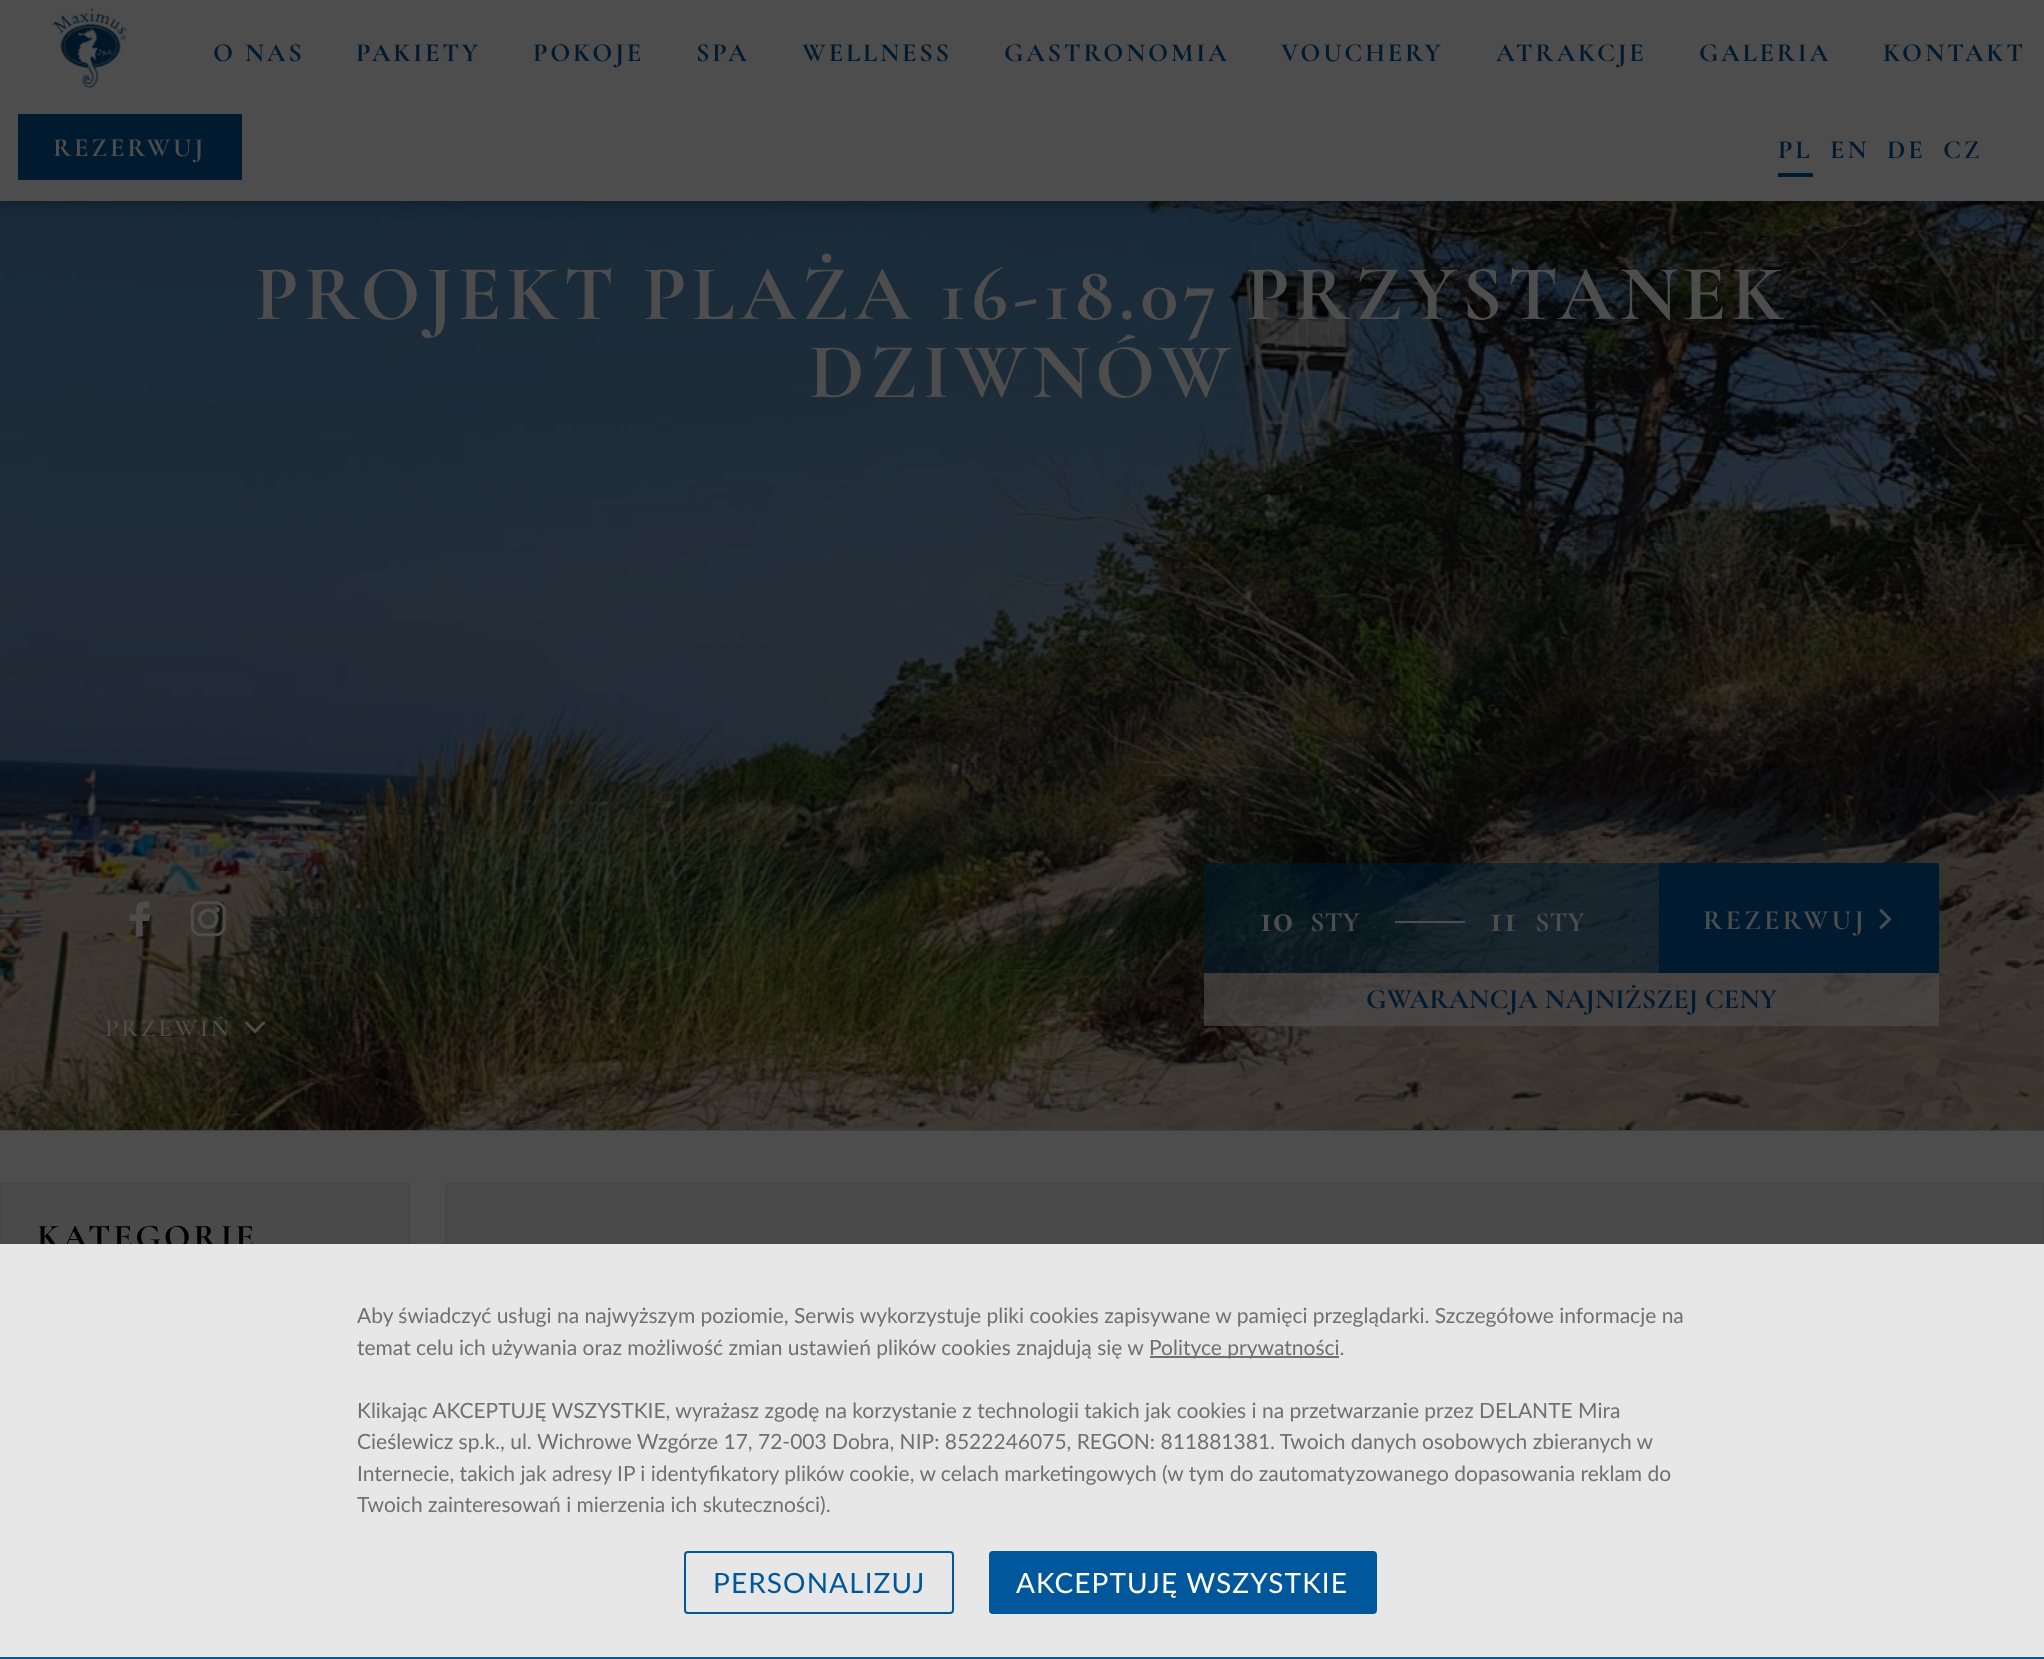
<?xml version="1.0" encoding="UTF-8"?>
<svg xmlns="http://www.w3.org/2000/svg" xmlns:xlink="http://www.w3.org/1999/xlink" width="2044" height="1659">
  <rect width="100%" height="100%" fill="#4d4d4d" />
  <rect y="201" width="2044" height="930" fill="#424242" />
  <image x="0" y="201" width="2044" height="929" xlink:href="image2.png" />
  <rect y="5" width="2044" height="202" fill="#000000" fill-opacity="0.2" filter="blur(5px)" />
  <rect width="2044" height="201" fill="#4d4d4d" />
  <image x="52" y="8" width="75" height="80" xlink:href="image1.png" />
  <rect x="18" y="114" width="224" height="66" fill="#001a2f" />
  <rect x="1778" y="173" width="35" height="4" fill="#001a2f" />
  <image x="129" y="901" width="22" height="36" xlink:href="image3.png" />
  <image x="190" y="901" width="36" height="36" xlink:href="image4.png" />
  <rect x="1204" y="863" width="228" height="110" fill="#001a2f" fill-opacity="0.56" />
  <rect x="1432" y="863" width="227" height="110" fill="#001a2f" fill-opacity="0.56" />
  <rect x="1395" y="921" width="70" height="2" fill="#4d4d4d" />
  <rect x="1659" y="863" width="280" height="110" fill="#001a2f" />
  <image x="1879" y="909" width="13" height="20" xlink:href="image5.png" />
  <rect x="1204" y="973" width="735" height="53" fill="#4d4a4c" fill-opacity="0.7" />
  <image x="245" y="1021" width="20" height="13" xlink:href="image6.png" />
  <rect x="2" y="1185" width="406" height="59" fill="#4a4a4a" />
  <rect x="1" y="1184" width="408" height="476" fill="none" stroke="#464646" stroke-width="2" />
  <rect x="447" y="1185" width="1595" height="59" fill="#4a4a4a" />
  <rect x="446" y="1184" width="1597" height="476" fill="none" stroke="#464646" stroke-width="2" />
  <rect y="1657" width="2044" height="2" fill="#01579b" />
  <text x="213" y="61" style="font-family: Cormorant Garamond; font-size: 26.25px; font-weight: bold; letter-spacing: 2.75px; fill: #001a2f">O NAS</text>
  <text x="356" y="61" style="font-family: Cormorant Garamond; font-size: 26.25px; font-weight: bold; letter-spacing: 2.75px; fill: #001a2f">PAKIETY</text>
  <text x="533" y="61" style="font-family: Cormorant Garamond; font-size: 26.25px; font-weight: bold; letter-spacing: 2.75px; fill: #001a2f">POKOJE</text>
  <text x="696" y="61" style="font-family: Cormorant Garamond; font-size: 26.25px; font-weight: bold; letter-spacing: 2.75px; fill: #001a2f">SPA</text>
  <text x="802" y="61" style="font-family: Cormorant Garamond; font-size: 26.25px; font-weight: bold; letter-spacing: 2.75px; fill: #001a2f">WELLNESS</text>
  <text x="1004" y="61" style="font-family: Cormorant Garamond; font-size: 26.25px; font-weight: bold; letter-spacing: 2.75px; fill: #001a2f">GASTRONOMIA</text>
  <text x="1281" y="61" style="font-family: Cormorant Garamond; font-size: 26.25px; font-weight: bold; letter-spacing: 2.75px; fill: #001a2f">VOUCHERY</text>
  <text x="1496" y="61" style="font-family: Cormorant Garamond; font-size: 26.25px; font-weight: bold; letter-spacing: 2.75px; fill: #001a2f">ATRAKCJE</text>
  <text x="1699" y="61" style="font-family: Cormorant Garamond; font-size: 26.25px; font-weight: bold; letter-spacing: 2.75px; fill: #001a2f">GALERIA</text>
  <text x="1883" y="61" style="font-family: Cormorant Garamond; font-size: 26.25px; font-weight: bold; letter-spacing: 2.75px; fill: #001a2f">KONTAKT</text>
  <text x="53" y="156" style="font-family: Cormorant Garamond; font-size: 26.25px; font-weight: bold; letter-spacing: 2.75px; fill: #4d4d4d">REZERWUJ</text>
  <text x="1778" y="158" style="font-family: Cormorant Garamond; font-size: 26.25px; font-weight: bold; letter-spacing: 2.75px; fill: #001a2f">PL</text>
  <text x="1830" y="158" style="font-family: Cormorant Garamond; font-size: 26.25px; font-weight: bold; letter-spacing: 2.75px; fill: #001a2f">EN</text>
  <text x="1887" y="158" style="font-family: Cormorant Garamond; font-size: 26.25px; font-weight: bold; letter-spacing: 2.75px; fill: #001a2f">DE</text>
  <text x="1943" y="158" style="font-family: Cormorant Garamond; font-size: 26.25px; font-weight: bold; letter-spacing: 2.75px; fill: #001a2f">CZ</text>
  <text x="255" y="319" style="font-family: Cormorant Garamond; font-size: 78.75px; font-weight: bold; letter-spacing: 5.25px; fill: #4d4d4d">PROJEKT PLAŻA 16-18.07 PRZYSTANEK</text>
  <text x="809" y="397" style="font-family: Cormorant Garamond; font-size: 78.75px; font-weight: bold; letter-spacing: 5.25px; fill: #4d4d4d">DZIWNÓW</text>
  <text x="1259" y="931" style="font-family: Cormorant Garamond; font-size: 42px; font-weight: bold; fill: #4d4d4d">10</text>
  <text x="1310" y="931" style="font-family: Cormorant Garamond; font-size: 28px; font-weight: bold; fill: #4d4d4d">STY</text>
  <text x="1489" y="931" style="font-family: Cormorant Garamond; font-size: 42px; font-weight: bold; fill: #4d4d4d">11</text>
  <text x="1535" y="931" style="font-family: Cormorant Garamond; font-size: 28px; font-weight: bold; fill: #4d4d4d">STY</text>
  <text x="1703" y="929" style="font-family: Cormorant Garamond; font-size: 28px; font-weight: bold; letter-spacing: 3px; fill: #4d4d4d">REZERWUJ</text>
  <text x="1366" y="1008" style="font-family: Cormorant Garamond; font-size: 28px; font-weight: bold; fill: #001a2f">GWARANCJA NAJNIŻSZEJ CENY</text>
  <text x="105" y="1036" style="font-family: Cormorant Garamond; font-size: 24.5px; font-weight: 600; letter-spacing: 2.75px; fill: #4d4d4d">PRZEWIŃ</text>
  <text x="37" y="1248" style="font-family: Cormorant Garamond; font-size: 35px; font-weight: bold; letter-spacing: 2.75px; fill: #000000">KATEGORIE</text>
  <rect y="1244" width="2044" height="413" fill="#e7e7e7" />
  <text x="357" y="1323" style="font-family: Lato; font-size: 21px; fill: #707070">Aby świadczyć usługi na najwyższym poziomie, Serwis wykorzystuje pliki cookies zapisywane w pamięci przeglądarki. Szczegółowe informacje na</text>
  <text x="357" y="1355" style="font-family: Lato; font-size: 21px; fill: #707070">temat celu ich używania oraz możliwość zmian ustawień plików cookies znajdują się w</text>
  <rect x="1150" y="1356" width="189" height="2" fill="#707070" />
  <text x="1149" y="1355" style="font-family: Lato; font-size: 21px; fill: #707070">Polityce prywatności.</text>
  <text x="357" y="1418" style="font-family: Lato; font-size: 21px; fill: #707070">Klikając AKCEPTUJĘ WSZYSTKIE, wyrażasz zgodę na korzystanie z technologii takich jak cookies i na przetwarzanie przez DELANTE Mira</text>
  <text x="357" y="1449" style="font-family: Lato; font-size: 21px; fill: #707070">Cieślewicz sp.k., ul. Wichrowe Wzgórze 17, 72-003 Dobra, NIP: 8522246075, REGON: 811881381. Twoich danych osobowych zbieranych w</text>
  <text x="357" y="1481" style="font-family: Lato; font-size: 21px; fill: #707070">Internecie, takich jak adresy IP i identyfikatory plików cookie, w celach marketingowych (w tym do zautomatyzowanego dopasowania reklam do</text>
  <text x="357" y="1512" style="font-family: Lato; font-size: 21px; fill: #707070">Twoich zainteresowań i mierzenia ich skuteczności).</text>
  <rect x="685" y="1552" width="268" height="61" rx="3" fill="none" stroke="#01579b" stroke-width="2" />
  <text x="713" y="1593" style="font-family: Lato; font-size: 28px; letter-spacing: 1.1px; fill: #01579b">PERSONALIZUJ</text>
  <rect x="990" y="1552" width="386" height="61" rx="3" fill="#01579b" stroke="#01579b" stroke-width="2" />
  <text x="1016" y="1593" style="font-family: Lato; font-size: 28px; letter-spacing: 1.1px; fill: #ffffff">AKCEPTUJĘ WSZYSTKIE</text>
</svg>
